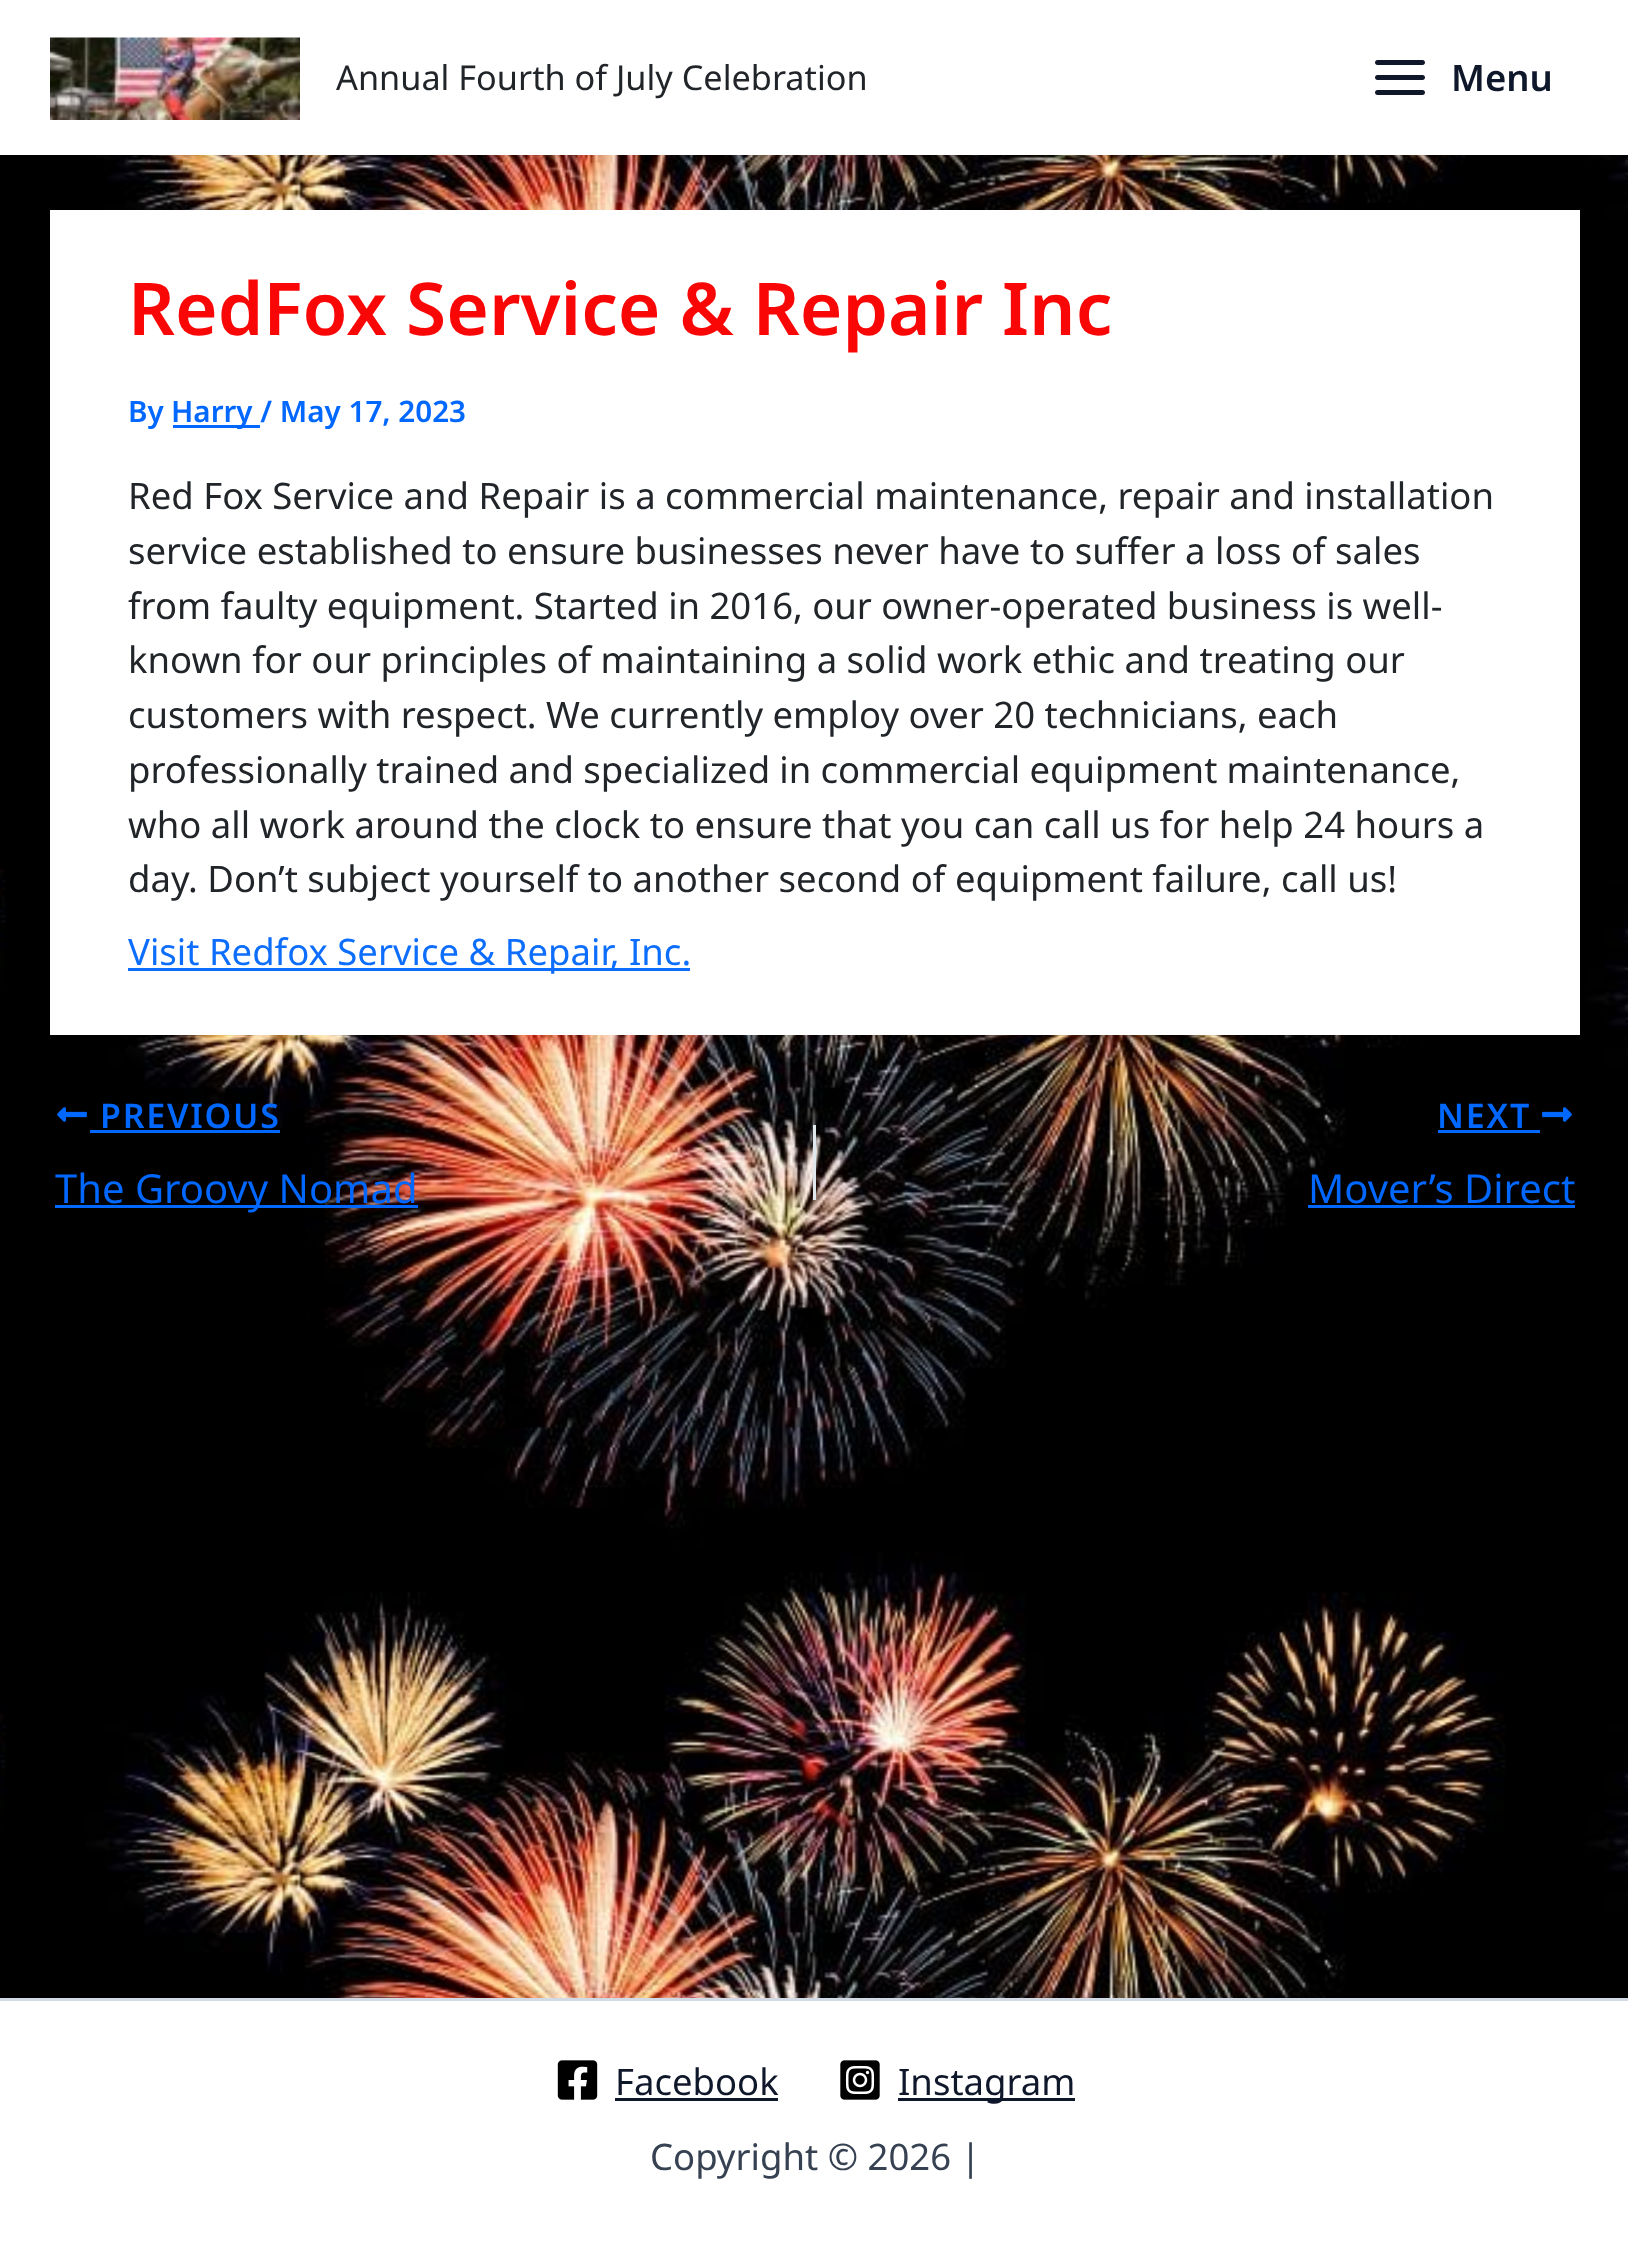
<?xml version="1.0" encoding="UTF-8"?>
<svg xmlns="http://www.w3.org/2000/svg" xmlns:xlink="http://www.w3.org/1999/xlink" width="1628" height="2259">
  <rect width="100%" height="100%" fill="#ffffff" />
  <image x="0" y="155" width="1628" height="1843" xlink:href="image1.png" />
  <image x="50" y="37" width="250" height="83" xlink:href="image2.png" />
  <image x="1375" y="60" width="50" height="35" xlink:href="image3.png" />
  <rect x="50" y="210" width="1530" height="825" fill="#ffffff" />
  <rect x="173" y="425" width="87" height="3" fill="#0067ff" />
  <rect x="128" y="968" width="562" height="3" fill="#0d6efd" />
  <image x="57" y="1107" width="30" height="15" xlink:href="image4.png" />
  <rect x="90" y="1130" width="190" height="3" fill="#0067ff" />
  <rect x="55" y="1205" width="363" height="3" fill="#0067ff" />
  <rect x="813" y="1125" width="3" height="75" fill="#e1e8ed" />
  <rect x="1438" y="1130" width="102" height="3" fill="#0067ff" />
  <image x="1542" y="1107" width="30" height="15" xlink:href="image5.png" />
  <rect x="1308" y="1205" width="267" height="3" fill="#0067ff" />
  <rect y="1998" width="1628" height="3" fill="#d1dae5" />
  <image x="557" y="2060" width="41" height="40" xlink:href="image6.png" />
  <rect x="615" y="2098" width="163" height="3" fill="#0f172a" />
  <image x="840" y="2060" width="40" height="40" xlink:href="image7.png" />
  <rect x="898" y="2098" width="177" height="3" fill="#0f172a" />
  <text x="336" y="90" style="font-family: Noto Sans; font-size: 34.25px; fill: #212529">Annual Fourth of July Celebration</text>
  <text x="1451" y="91" style="font-family: Noto Sans; font-size: 36.5px; font-weight: 600; fill: #0f172a">Menu</text>
  <text x="128" y="335" style="font-family: Noto Sans; font-size: 73px; font-weight: 600; fill: #f90707">RedFox Service &amp; Repair Inc</text>
  <text x="128" y="422" style="font-family: Noto Sans; font-size: 29.6px; font-weight: 600; fill: #0067ff">By</text>
  <text x="171" y="422" style="font-family: Noto Sans; font-size: 29.6px; font-weight: 600; fill: #0067ff">Harry / May 17, 2023</text>
  <text x="128" y="509" style="font-family: Noto Sans; font-size: 36.5px; fill: #212529">Red Fox Service and Repair is a commercial maintenance, repair and installation</text>
  <text x="128" y="564" style="font-family: Noto Sans; font-size: 36.5px; fill: #212529">service established to ensure businesses never have to suffer a loss of sales</text>
  <text x="128" y="619" word-spacing="-0.1" style="font-family: Noto Sans; font-size: 36.5px; fill: #212529">from faulty equipment. Started in 2016, our owner-operated business is well-</text>
  <text x="128" y="673" style="font-family: Noto Sans; font-size: 36.5px; fill: #212529">known for our principles of maintaining a solid work ethic and treating our</text>
  <text x="128" y="728" word-spacing="-0.1" style="font-family: Noto Sans; font-size: 36.5px; fill: #212529">customers with respect. We currently employ over 20 technicians, each</text>
  <text x="128" y="783" word-spacing="-0.25" style="font-family: Noto Sans; font-size: 36.5px; fill: #212529">professionally trained and specialized in commercial equipment maintenance,</text>
  <text x="128" y="838" style="font-family: Noto Sans; font-size: 36.5px; fill: #212529">who all work around the clock to ensure that you can call us for help 24 hours a</text>
  <text x="128" y="892" style="font-family: Noto Sans; font-size: 36.5px; fill: #212529">day. Don’t subject yourself to another second of equipment failure, call us!</text>
  <text x="128" y="965" style="font-family: Noto Sans; font-size: 36.5px; fill: #0d6efd">Visit Redfox Service &amp; Repair, Inc.</text>
  <text x="100" y="1128" style="font-family: Noto Sans; font-size: 34px; font-weight: 600; letter-spacing: 1.75px; fill: #0067ff">PREVIOUS</text>
  <text x="55" y="1203" style="font-family: Noto Sans; font-size: 40px; fill: #0067ff">The Groovy Nomad</text>
  <text x="1437" y="1128" style="font-family: Noto Sans; font-size: 34px; font-weight: 600; letter-spacing: 1.75px; fill: #0067ff">NEXT</text>
  <text x="1308" y="1203" style="font-family: Noto Sans; font-size: 40px; fill: #0067ff">Mover’s Direct</text>
  <text x="615" y="2095" style="font-family: Noto Sans; font-size: 36.5px; fill: #0f172a">Facebook</text>
  <text x="898" y="2095" style="font-family: Noto Sans; font-size: 36.5px; fill: #0f172a">Instagram</text>
  <text x="650" y="2170" style="font-family: Noto Sans; font-size: 36.5px; fill: #364151">Copyright © 2026 |</text>
</svg>
